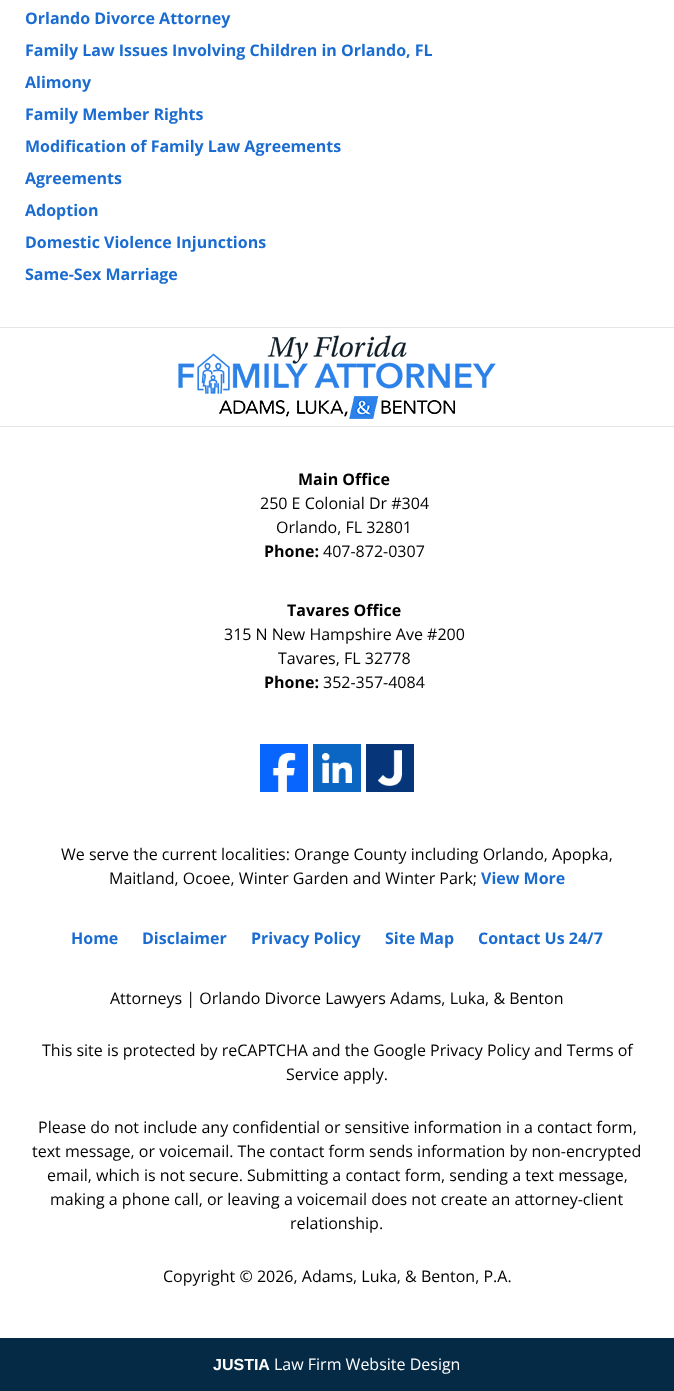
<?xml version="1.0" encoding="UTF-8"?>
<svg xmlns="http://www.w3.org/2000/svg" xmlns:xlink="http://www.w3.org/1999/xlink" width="674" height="1391">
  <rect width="100%" height="100%" fill="#ffffff" />
  <rect y="426" width="674" height="1" fill="#e5e5e5" />
  <rect y="327" width="674" height="1" fill="#e5e5e5" />
  <image x="178" y="335" width="318" height="84" xlink:href="image1.png" />
  <image x="260" y="744" width="48" height="48" xlink:href="image2.png" />
  <image x="313" y="744" width="48" height="48" xlink:href="image3.png" />
  <image x="366" y="744" width="48" height="48" xlink:href="image4.png" />
  <rect y="1338" width="674" height="53" fill="#042a45" />
  <text x="25" y="24" style="font-family: Open Sans; font-size: 16px; font-weight: bold; fill: #1a6cd1">Orlando Divorce Attorney</text>
  <text x="25" y="56" style="font-family: Open Sans; font-size: 16px; font-weight: bold; fill: #1a6cd1">Family Law Issues Involving Children in Orlando, FL</text>
  <text x="25" y="88" style="font-family: Open Sans; font-size: 16px; font-weight: bold; fill: #1a6cd1">Alimony</text>
  <text x="25" y="120" style="font-family: Open Sans; font-size: 16px; font-weight: bold; fill: #1a6cd1">Family Member Rights</text>
  <text x="25" y="152" style="font-family: Open Sans; font-size: 16px; font-weight: bold; fill: #1a6cd1">Modification of Family Law Agreements</text>
  <text x="25" y="184" style="font-family: Open Sans; font-size: 16px; font-weight: bold; fill: #1a6cd1">Agreements</text>
  <text x="25" y="216" style="font-family: Open Sans; font-size: 16px; font-weight: bold; fill: #1a6cd1">Adoption</text>
  <text x="25" y="248" style="font-family: Open Sans; font-size: 16px; font-weight: bold; fill: #1a6cd1">Domestic Violence Injunctions</text>
  <text x="25" y="280" style="font-family: Open Sans; font-size: 16px; font-weight: bold; fill: #1a6cd1">Same-Sex Marriage</text>
  <text x="298" y="485" style="font-family: Open Sans; font-size: 16px; font-weight: bold; fill: #000000">Main Office</text>
  <text x="260" y="509" style="font-family: Open Sans; font-size: 16px; fill: #000000">250 E Colonial Dr #304</text>
  <text x="276" y="533" style="font-family: Open Sans; font-size: 16px; fill: #000000">Orlando, FL 32801</text>
  <text x="264" y="557" style="font-family: Open Sans; font-size: 16px; font-weight: bold; fill: #000000">Phone:</text>
  <text x="323" y="557" style="font-family: Open Sans; font-size: 16px; fill: #000000">407-872-0307</text>
  <text x="287" y="616" style="font-family: Open Sans; font-size: 16px; font-weight: bold; fill: #000000">Tavares Office</text>
  <text x="224" y="640" style="font-family: Open Sans; font-size: 16px; fill: #000000">315 N New Hampshire Ave #200</text>
  <text x="278" y="664" style="font-family: Open Sans; font-size: 16px; fill: #000000">Tavares, FL 32778</text>
  <text x="264" y="688" style="font-family: Open Sans; font-size: 16px; font-weight: bold; fill: #000000">Phone:</text>
  <text x="323" y="688" style="font-family: Open Sans; font-size: 16px; fill: #000000">352-357-4084</text>
  <text x="61" y="860" style="font-family: Open Sans; font-size: 16px; fill: #000000">We serve the current localities: Orange County including Orlando, Apopka,</text>
  <text x="109" y="884" style="font-family: Open Sans; font-size: 16px; fill: #000000">Maitland, Ocoee, Winter Garden and Winter Park;</text>
  <text x="481" y="884" style="font-family: Open Sans; font-size: 16px; font-weight: bold; fill: #1a6cd1">View More</text>
  <text x="71" y="944" style="font-family: Open Sans; font-size: 16px; font-weight: bold; fill: #1a6cd1">Home</text>
  <text x="142" y="944" style="font-family: Open Sans; font-size: 16px; font-weight: bold; fill: #1a6cd1">Disclaimer</text>
  <text x="251" y="944" style="font-family: Open Sans; font-size: 16px; font-weight: bold; fill: #1a6cd1">Privacy Policy</text>
  <text x="385" y="944" style="font-family: Open Sans; font-size: 16px; font-weight: bold; fill: #1a6cd1">Site Map</text>
  <text x="478" y="944" style="font-family: Open Sans; font-size: 16px; font-weight: bold; fill: #1a6cd1">Contact Us 24/7</text>
  <text x="110" y="1004" style="font-family: Open Sans; font-size: 16px; fill: #000000">Attorneys | Orlando Divorce Lawyers Adams, Luka, &amp; Benton</text>
  <text x="42" y="1056" style="font-family: Open Sans; font-size: 16px; fill: #000000">This site is protected by reCAPTCHA and the Google Privacy Policy and Terms of</text>
  <text x="286" y="1080" style="font-family: Open Sans; font-size: 16px; fill: #000000">Service apply.</text>
  <text x="38" y="1133" style="font-family: Open Sans; font-size: 16px; fill: #000000">Please do not include any confidential or sensitive information in a contact form,</text>
  <text x="32" y="1157" style="font-family: Open Sans; font-size: 16px; fill: #000000">text message, or voicemail. The contact form sends information by non-encrypted</text>
  <text x="47" y="1181" style="font-family: Open Sans; font-size: 16px; fill: #000000">email, which is not secure. Submitting a contact form, sending a text message,</text>
  <text x="50" y="1205" style="font-family: Open Sans; font-size: 16px; fill: #000000">making a phone call, or leaving a voicemail does not create an attorney-client</text>
  <text x="290" y="1229" style="font-family: Open Sans; font-size: 16px; fill: #000000">relationship.</text>
  <text x="163" y="1282" style="font-family: Open Sans; font-size: 16px; fill: #000000">Copyright © 2026, Adams, Luka, &amp; Benton, P.A.</text>
  <text x="213" y="1370" style="font-family: Liberation Sans; font-size: 16px; font-weight: bold; fill: #ffffff">JUSTIA</text>
  <text x="274" y="1370" style="font-family: Open Sans; font-size: 16px; fill: #ffffff">Law Firm Website Design</text>
</svg>
